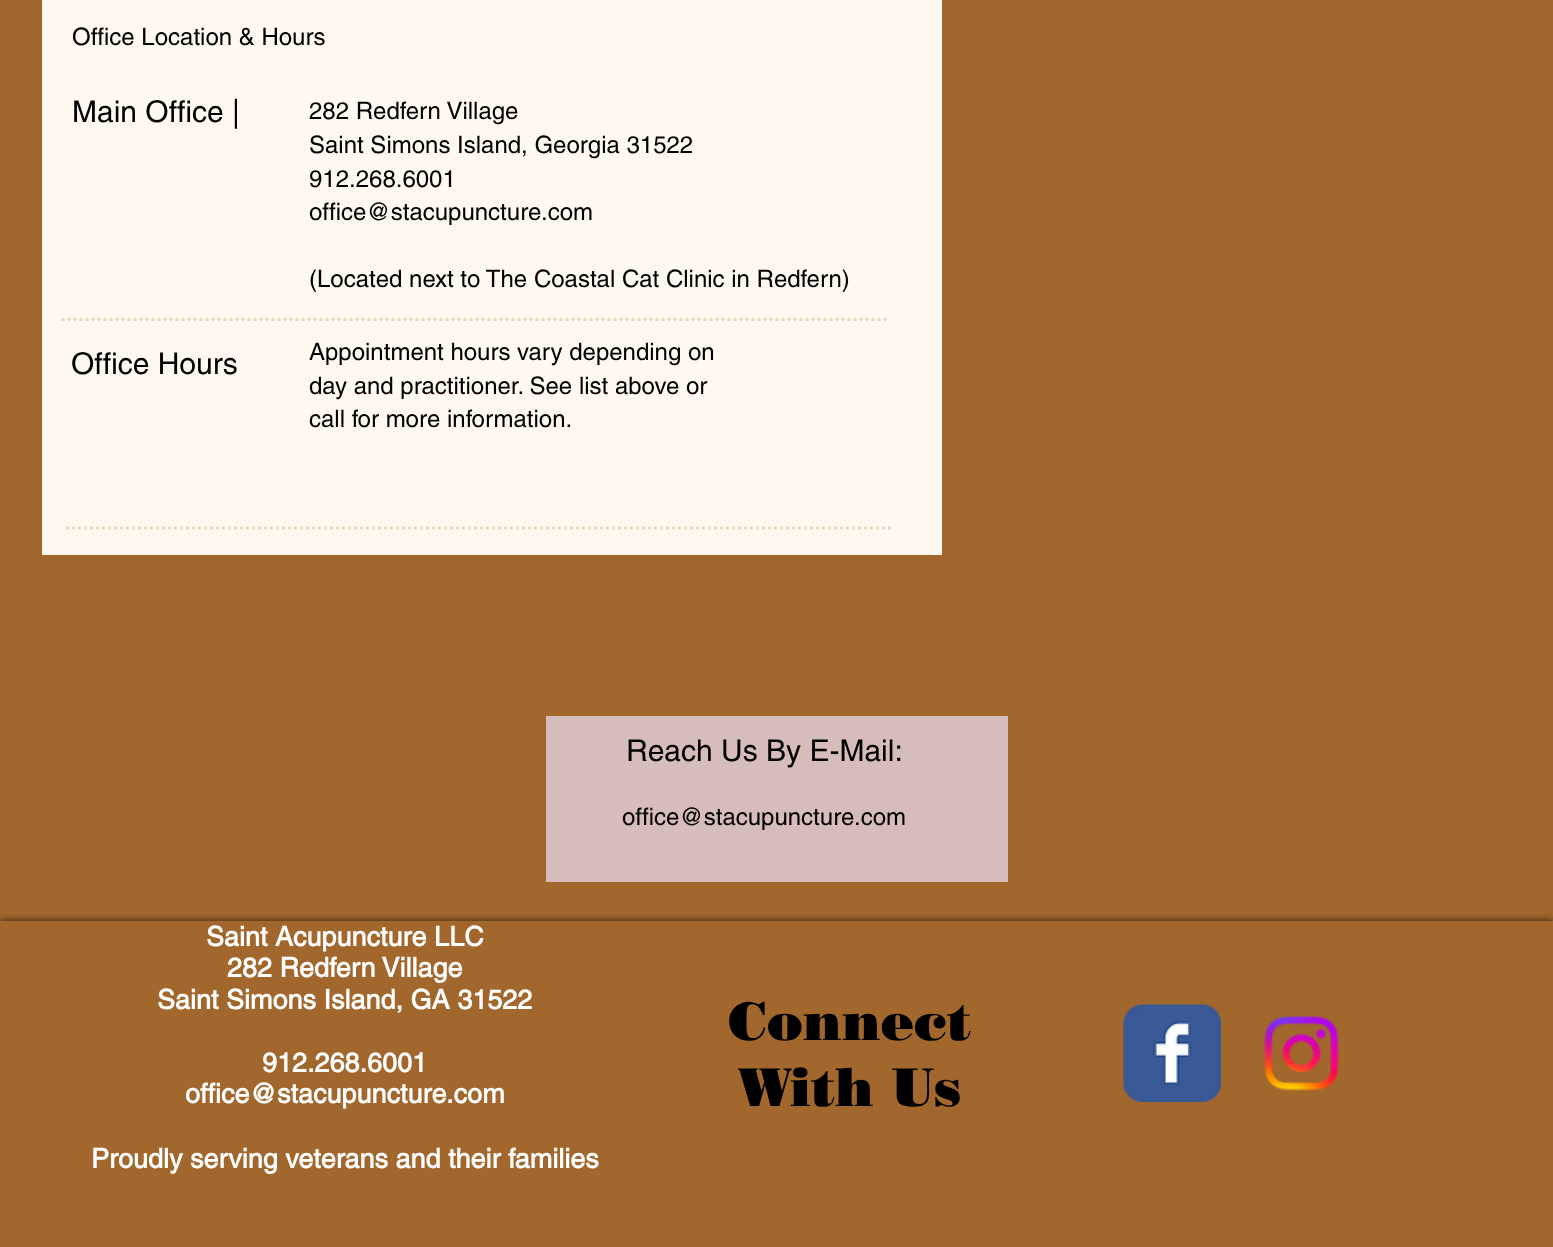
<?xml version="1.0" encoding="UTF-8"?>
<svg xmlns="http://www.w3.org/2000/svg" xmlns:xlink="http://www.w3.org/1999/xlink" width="1553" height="1247">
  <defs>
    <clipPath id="clip1"><rect x="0" y="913" width="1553" height="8" /></clipPath>
  </defs>
  <rect width="100%" height="100%" fill="#a2672d" />
  <rect x="42" width="900" height="555" fill="#fff8f1" />
  <path d="M 61.5 319.5 h 825" fill="none" stroke="#e8d6c1" stroke-width="3" stroke-dasharray="3 3" />
  <path d="M 66 528 h 825" fill="none" stroke="#e8d6c1" stroke-width="3" stroke-dasharray="3 3" />
  <rect x="546" y="716" width="462" height="166" fill="#d6bcba" />
  <g clip-path="url(#clip1)">
    <rect y="921" width="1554" height="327" fill="#000000" fill-opacity="0.7" filter="blur(4px)" />
  </g>
  <image x="1123" y="1004" width="98" height="98" xlink:href="image1.png" />
  <image x="1264" y="1016" width="75" height="75" xlink:href="image2.png" />
  <text x="72" y="45" style="font-family: helvetica; font-size: 24px; fill: #000000">Office Location &amp; Hours</text>
  <text x="72" y="122" style="font-family: helvetica; font-size: 30px; fill: #000000">Main Office |</text>
  <text x="309" y="119" style="font-family: helvetica; font-size: 24px; fill: #000000">282 Redfern Village</text>
  <text x="309" y="153" style="font-family: helvetica; font-size: 24px; fill: #000000">Saint Simons Island, Georgia 31522</text>
  <text x="309" y="187" style="font-family: helvetica; font-size: 24px; fill: #000000">912.268.6001</text>
  <text x="309" y="220" style="font-family: helvetica; font-size: 24px; fill: #000000">office@stacupuncture.com</text>
  <text x="309" y="287" style="font-family: helvetica; font-size: 24px; fill: #000000">(Located next to The Coastal Cat Clinic in Redfern)</text>
  <text x="71" y="374" style="font-family: helvetica; font-size: 30px; fill: #000000">Office Hours</text>
  <text x="309" y="360" style="font-family: helvetica; font-size: 24px; fill: #000000">Appointment hours vary depending on</text>
  <text x="309" y="394" style="font-family: helvetica; font-size: 24px; fill: #000000">day and practitioner. See list above or</text>
  <text x="309" y="427" style="font-family: helvetica; font-size: 24px; fill: #000000">call for more information.</text>
  <text x="626" y="761" style="font-family: helvetica; font-size: 30px; fill: #000000">Reach Us By E-Mail:</text>
  <text x="622" y="825" style="font-family: helvetica; font-size: 24px; fill: #000000">office@stacupuncture.com</text>
  <text x="206" y="946" style="font-family: helvetica; font-size: 27px; font-weight: bold; fill: #ffffff">Saint Acupuncture LLC</text>
  <text x="227" y="977" style="font-family: helvetica; font-size: 27px; font-weight: bold; fill: #ffffff">282 Redfern Village</text>
  <text x="157" y="1009" style="font-family: helvetica; font-size: 27px; font-weight: bold; fill: #ffffff">Saint Simons Island, GA 31522</text>
  <text x="262" y="1072" style="font-family: helvetica; font-size: 27px; font-weight: bold; fill: #ffffff">912.268.6001</text>
  <text x="185" y="1103" style="font-family: helvetica; font-size: 27px; font-weight: bold; fill: #ffffff">office@stacupuncture.com</text>
  <text x="91" y="1168" style="font-family: helvetica; font-size: 27px; font-weight: bold; fill: #ffffff">Proudly serving veterans and their families</text>
  <text x="728" y="1040" style="font-family: 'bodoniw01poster'; font-size: 54px; font-weight: 900; fill: #000000">Connect</text>
  <text x="738" y="1106" style="font-family: 'bodoniw01poster'; font-size: 54px; font-weight: 900; fill: #000000">With Us</text>
</svg>
